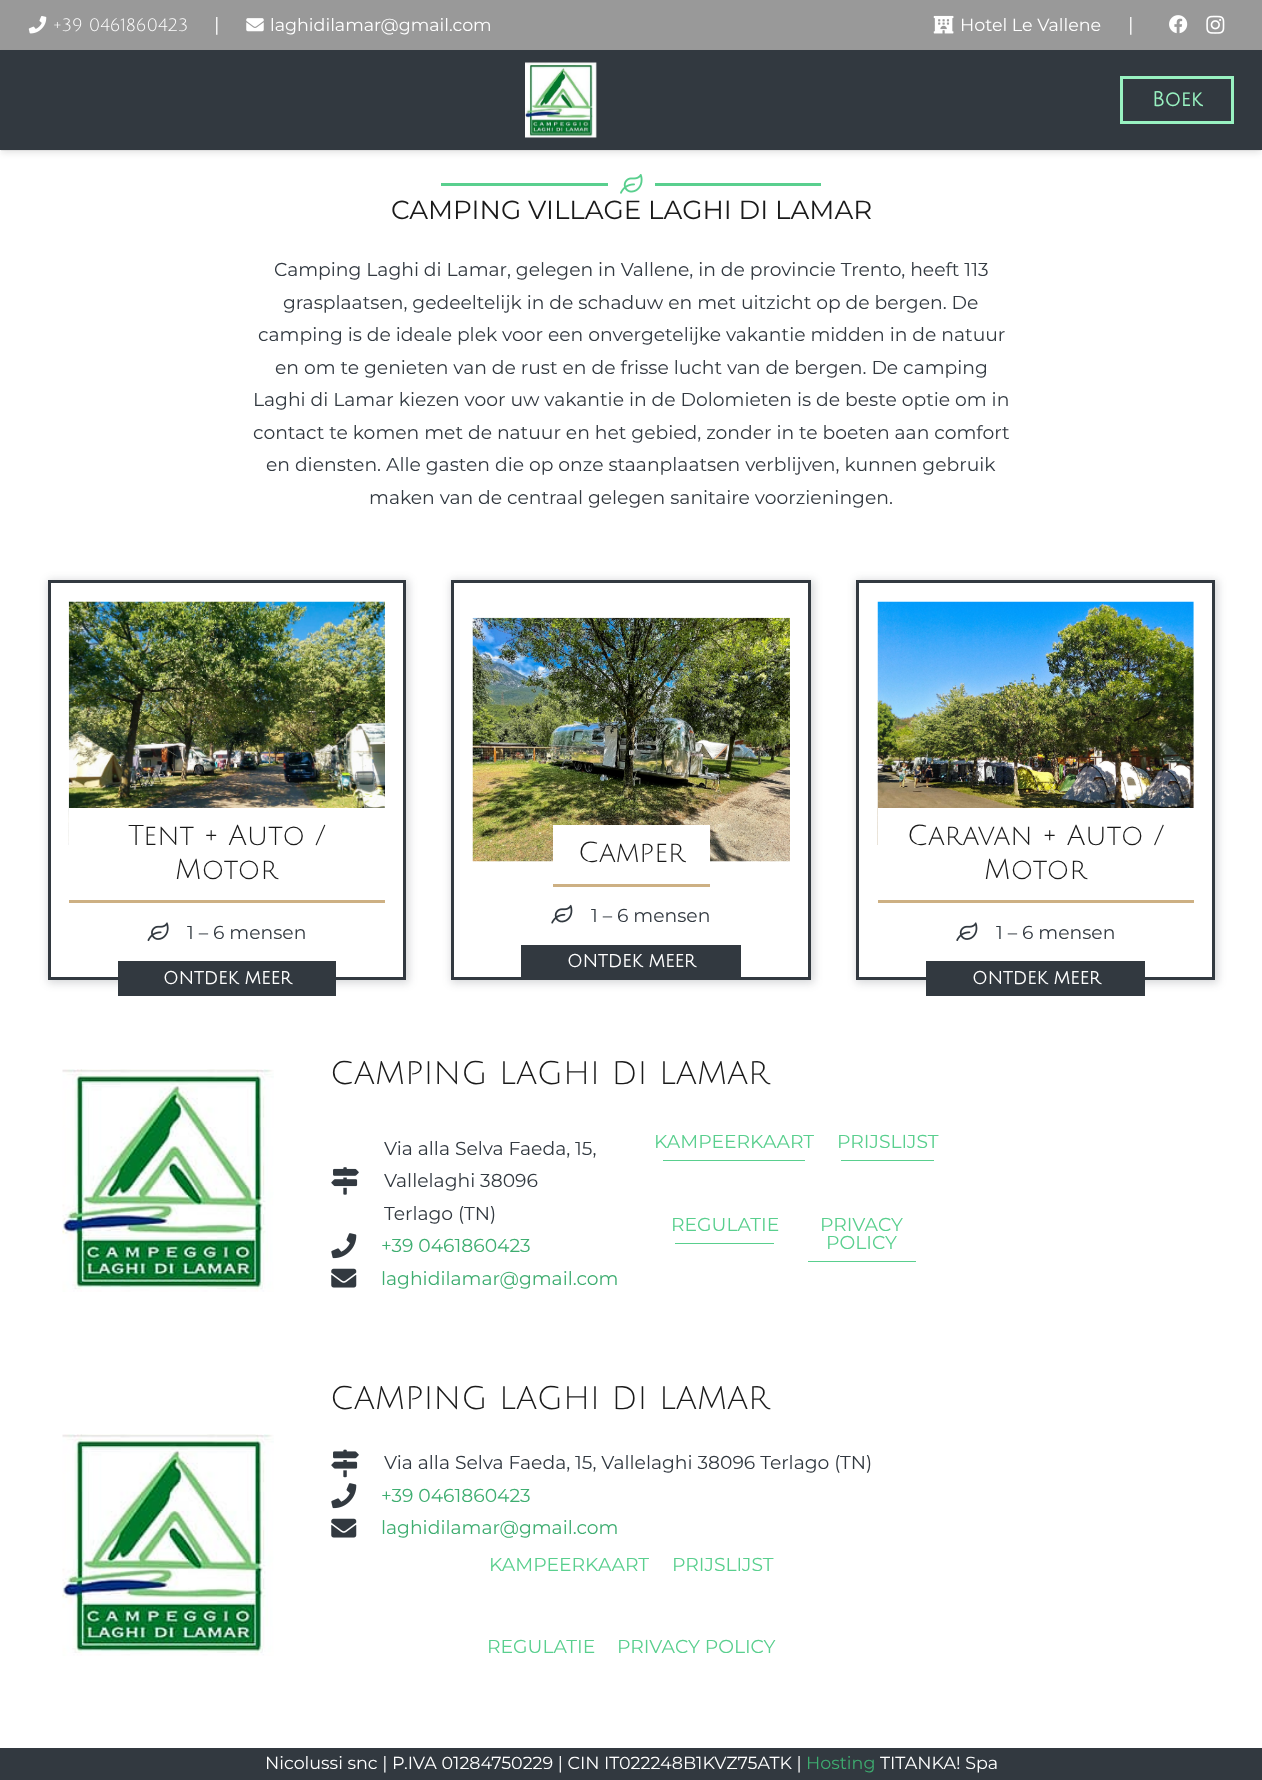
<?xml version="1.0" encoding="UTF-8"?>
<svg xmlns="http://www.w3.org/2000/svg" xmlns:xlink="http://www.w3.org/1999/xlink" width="1262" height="1780">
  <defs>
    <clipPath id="clip1"><path d="M 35 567 h 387 v 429 h -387 z m 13 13 h 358 v 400 h -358 z" clip-rule="evenodd" /></clipPath>
    <clipPath id="clip2"><path d="M 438 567 h 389 v 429 h -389 z m 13 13 h 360 v 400 h -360 z" clip-rule="evenodd" /></clipPath>
    <clipPath id="clip3"><path d="M 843 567 h 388 v 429 h -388 z m 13 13 h 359 v 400 h -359 z" clip-rule="evenodd" /></clipPath>
  </defs>
  <rect width="100%" height="100%" fill="#ffffff" />
  <rect width="1262" height="50" fill="#999999" />
  <image x="28" y="16" width="19" height="18" xlink:href="image1.png" />
  <image x="246" y="18" width="18" height="14" xlink:href="image2.png" />
  <image x="933" y="15" width="21" height="19" xlink:href="image3.png" />
  <image x="1169" y="15" width="19" height="19" xlink:href="image4.png" />
  <image x="1206" y="15" width="19" height="19" xlink:href="image5.png" />
  <rect x="1" y="54" width="1260" height="97" fill="#000000" fill-opacity="0.05" filter="blur(0.5px)" />
  <rect x="1" y="55" width="1260" height="98" fill="#000000" fill-opacity="0.1" filter="blur(3px)" />
  <rect y="50" width="1262" height="100" fill="#323940" />
  <image x="525" y="62" width="72" height="76" xlink:href="image6.png" />
  <rect x="1121.5" y="77.5" width="111" height="45" fill="none" stroke="#99f2c1" stroke-width="3" />
  <rect x="441" y="183" width="167" height="3" fill="#59cf8e" />
  <image x="620" y="174" width="23" height="20" xlink:href="image7.png" />
  <rect x="655" y="183" width="166" height="3" fill="#59cf8e" />
  <g clip-path="url(#clip1)">
    <rect x="48" y="580" width="361" height="403" fill="#323940" fill-opacity="0.2" filter="blur(4px)" />
  </g>
  <rect x="49.5" y="581.5" width="355" height="397" fill="none" stroke="#323940" stroke-width="3" />
  <image x="68" y="601" width="317" height="244" xlink:href="image8.png" />
  <rect x="69" y="808" width="316" height="37" fill="#ffffff" />
  <rect x="69" y="900" width="316" height="3" fill="#cdb083" />
  <image x="147" y="922" width="22" height="20" xlink:href="image9.png" />
  <rect x="118" y="961" width="218" height="35" fill="#323940" />
  <g clip-path="url(#clip2)">
    <rect x="451" y="580" width="363" height="403" fill="#323940" fill-opacity="0.2" filter="blur(4px)" />
  </g>
  <rect x="452.5" y="581.5" width="357" height="397" fill="none" stroke="#323940" stroke-width="3" />
  <image x="472" y="617" width="318" height="245" xlink:href="image10.png" />
  <rect x="553" y="825" width="157" height="37" fill="#ffffff" />
  <rect x="553" y="884" width="157" height="3" fill="#cdb083" />
  <image x="551" y="904" width="22" height="20" xlink:href="image11.png" />
  <rect x="521" y="945" width="220" height="32" fill="#323940" />
  <g clip-path="url(#clip3)">
    <rect x="856" y="580" width="362" height="403" fill="#323940" fill-opacity="0.2" filter="blur(4px)" />
  </g>
  <rect x="857.5" y="581.5" width="356" height="397" fill="none" stroke="#323940" stroke-width="3" />
  <image x="877" y="601" width="317" height="244" xlink:href="image12.png" />
  <rect x="878" y="808" width="316" height="37" fill="#ffffff" />
  <rect x="878" y="900" width="316" height="3" fill="#cdb083" />
  <image x="956" y="922" width="22" height="19" xlink:href="image13.png" />
  <rect x="926" y="961" width="219" height="35" fill="#323940" />
  <image x="62" y="1069" width="212" height="223" xlink:href="image14.png" />
  <image x="331" y="1167" width="28" height="28" xlink:href="image15.png" />
  <image x="331" y="1233" width="26" height="26" xlink:href="image16.png" />
  <image x="331" y="1268" width="26" height="20" xlink:href="image17.png" />
  <rect x="663" y="1160" width="142" height="1" fill="#59cf8e" />
  <rect x="841" y="1160" width="93" height="1" fill="#59cf8e" />
  <rect x="675" y="1243" width="99" height="1" fill="#59cf8e" />
  <rect x="808" y="1261" width="108" height="1" fill="#59cf8e" />
  <image x="62" y="1434" width="212" height="222" xlink:href="image18.png" />
  <image x="331" y="1449" width="28" height="29" xlink:href="image19.png" />
  <image x="331" y="1483" width="26" height="26" xlink:href="image16.png" />
  <image x="331" y="1518" width="26" height="20" xlink:href="image17.png" />
  <rect y="1748" width="1262" height="32" fill="#323940" />
  <text x="53" y="31" style="font-family: Julius Sans One; font-size: 17.5px; fill: #ffffff">+39 0461860423</text>
  <text x="214" y="31" style="font-family: Montserrat; font-size: 18.75px; fill: #ffffff">|</text>
  <text x="270" y="31" style="font-family: Montserrat; font-size: 17.5px; fill: #ffffff">laghidilamar@gmail.com</text>
  <text x="960" y="31" style="font-family: Montserrat; font-size: 17.5px; fill: #ffffff">Hotel Le Vallene</text>
  <text x="1128" y="31" style="font-family: Montserrat; font-size: 18.75px; fill: #ffffff">|</text>
  <text x="1152" y="106" style="font-family: Julius Sans One; font-size: 20px; font-weight: bold; fill: #99f2c1">Boek</text>
  <text x="391" y="219" style="font-family: Montserrat; font-size: 26.25px; fill: #1a1a1a">CAMPING VILLAGE LAGHI DI LAMAR</text>
  <text x="274" y="276" style="font-family: Montserrat; font-size: 18.75px; fill: #323940">Camping Laghi di Lamar, gelegen in Vallene, in de provincie Trento, heeft 113</text>
  <text x="283" y="309" style="font-family: Montserrat; font-size: 18.75px; fill: #323940">grasplaatsen, gedeeltelijk in de schaduw en met uitzicht op de bergen. De</text>
  <text x="258" y="341" style="font-family: Montserrat; font-size: 18.75px; fill: #323940">camping is de ideale plek voor een onvergetelijke vakantie midden in de natuur</text>
  <text x="275" y="374" style="font-family: Montserrat; font-size: 18.75px; fill: #323940">en om te genieten van de rust en de frisse lucht van de bergen. De camping</text>
  <text x="253" y="406" style="font-family: Montserrat; font-size: 18.75px; fill: #323940">Laghi di Lamar kiezen voor uw vakantie in de Dolomieten is de beste optie om in</text>
  <text x="253" y="439" style="font-family: Montserrat; font-size: 18.75px; fill: #323940">contact te komen met de natuur en het gebied, zonder in te boeten aan comfort</text>
  <text x="266" y="471" style="font-family: Montserrat; font-size: 18.75px; fill: #323940">en diensten. Alle gasten die op onze staanplaatsen verblijven, kunnen gebruik</text>
  <text x="369" y="504" style="font-family: Montserrat; font-size: 18.75px; fill: #323940">maken van de centraal gelegen sanitaire voorzieningen.</text>
  <text x="128" y="845" style="font-family: Julius Sans One; font-size: 28.1px; fill: #1a1a1a">Tent + Auto /</text>
  <text x="175" y="879" style="font-family: Julius Sans One; font-size: 28.1px; fill: #1a1a1a">Motor</text>
  <text x="187" y="939" style="font-family: Montserrat; font-size: 18.75px; fill: #323940">1 – 6 mensen</text>
  <text x="163" y="984" style="font-family: Julius Sans One; font-size: 17.5px; font-weight: bold; fill: #ffffff">ONTDEK MEER</text>
  <text x="578" y="862" style="font-family: Julius Sans One; font-size: 28.1px; fill: #1a1a1a">Camper</text>
  <text x="591" y="922" style="font-family: Montserrat; font-size: 18.75px; fill: #323940">1 – 6 mensen</text>
  <text x="567" y="967" style="font-family: Julius Sans One; font-size: 17.5px; font-weight: bold; fill: #ffffff">ONTDEK MEER</text>
  <text x="907" y="845" style="font-family: Julius Sans One; font-size: 28.1px; fill: #1a1a1a">Caravan + Auto /</text>
  <text x="984" y="879" style="font-family: Julius Sans One; font-size: 28.1px; fill: #1a1a1a">Motor</text>
  <text x="996" y="939" style="font-family: Montserrat; font-size: 18.75px; fill: #323940">1 – 6 mensen</text>
  <text x="972" y="984" style="font-family: Julius Sans One; font-size: 17.5px; font-weight: bold; fill: #ffffff">ONTDEK MEER</text>
  <text x="330" y="1084" style="font-family: Julius Sans One; font-size: 31.9px; fill: #1a1a1a">CAMPING LAGHI DI LAMAR</text>
  <text x="384" y="1155" style="font-family: Montserrat; font-size: 18.75px; fill: #323940">Via alla Selva Faeda, 15,</text>
  <text x="384" y="1187" style="font-family: Montserrat; font-size: 18.75px; fill: #323940">Vallelaghi 38096</text>
  <text x="384" y="1220" style="font-family: Montserrat; font-size: 18.75px; fill: #323940">Terlago (TN)</text>
  <text x="381" y="1252" style="font-family: Montserrat; font-size: 18.75px; fill: #3ead70">+39 0461860423</text>
  <text x="381" y="1285" style="font-family: Montserrat; font-size: 18.75px; fill: #3ead70">laghidilamar@gmail.com</text>
  <text x="654" y="1148" style="font-family: Montserrat; font-size: 18.75px; fill: #59cf8e">KAMPEERKAART</text>
  <text x="837" y="1148" style="font-family: Montserrat; font-size: 18.75px; fill: #59cf8e">PRIJSLIJST</text>
  <text x="671" y="1231" style="font-family: Montserrat; font-size: 18.75px; fill: #59cf8e">REGULATIE</text>
  <text x="820" y="1231" style="font-family: Montserrat; font-size: 18.75px; fill: #59cf8e">PRIVACY</text>
  <text x="826" y="1249" style="font-family: Montserrat; font-size: 18.75px; fill: #59cf8e">POLICY</text>
  <text x="330" y="1409" style="font-family: Julius Sans One; font-size: 31.9px; fill: #1a1a1a">CAMPING LAGHI DI LAMAR</text>
  <text x="384" y="1469" style="font-family: Montserrat; font-size: 18.75px; fill: #323940">Via alla Selva Faeda, 15, Vallelaghi 38096 Terlago (TN)</text>
  <text x="381" y="1502" style="font-family: Montserrat; font-size: 18.75px; fill: #3ead70">+39 0461860423</text>
  <text x="381" y="1534" style="font-family: Montserrat; font-size: 18.75px; fill: #3ead70">laghidilamar@gmail.com</text>
  <text x="489" y="1571" style="font-family: Montserrat; font-size: 18.75px; fill: #59cf8e">KAMPEERKAART</text>
  <text x="672" y="1571" style="font-family: Montserrat; font-size: 18.75px; fill: #59cf8e">PRIJSLIJST</text>
  <text x="487" y="1653" style="font-family: Montserrat; font-size: 18.75px; fill: #59cf8e">REGULATIE</text>
  <text x="617" y="1653" style="font-family: Montserrat; font-size: 18.75px; fill: #59cf8e">PRIVACY POLICY</text>
  <text x="265" y="1769" style="font-family: Montserrat; font-size: 17.5px; fill: #ffffff">Nicolussi snc | P.IVA 01284750229 | CIN IT022248B1KVZ75ATK |</text>
  <text x="806" y="1769" style="font-family: Montserrat; font-size: 17.5px; fill: #3ead70">Hosting</text>
  <text x="880" y="1769" style="font-family: Montserrat; font-size: 17.5px; fill: #ffffff">TITANKA! Spa</text>
</svg>
